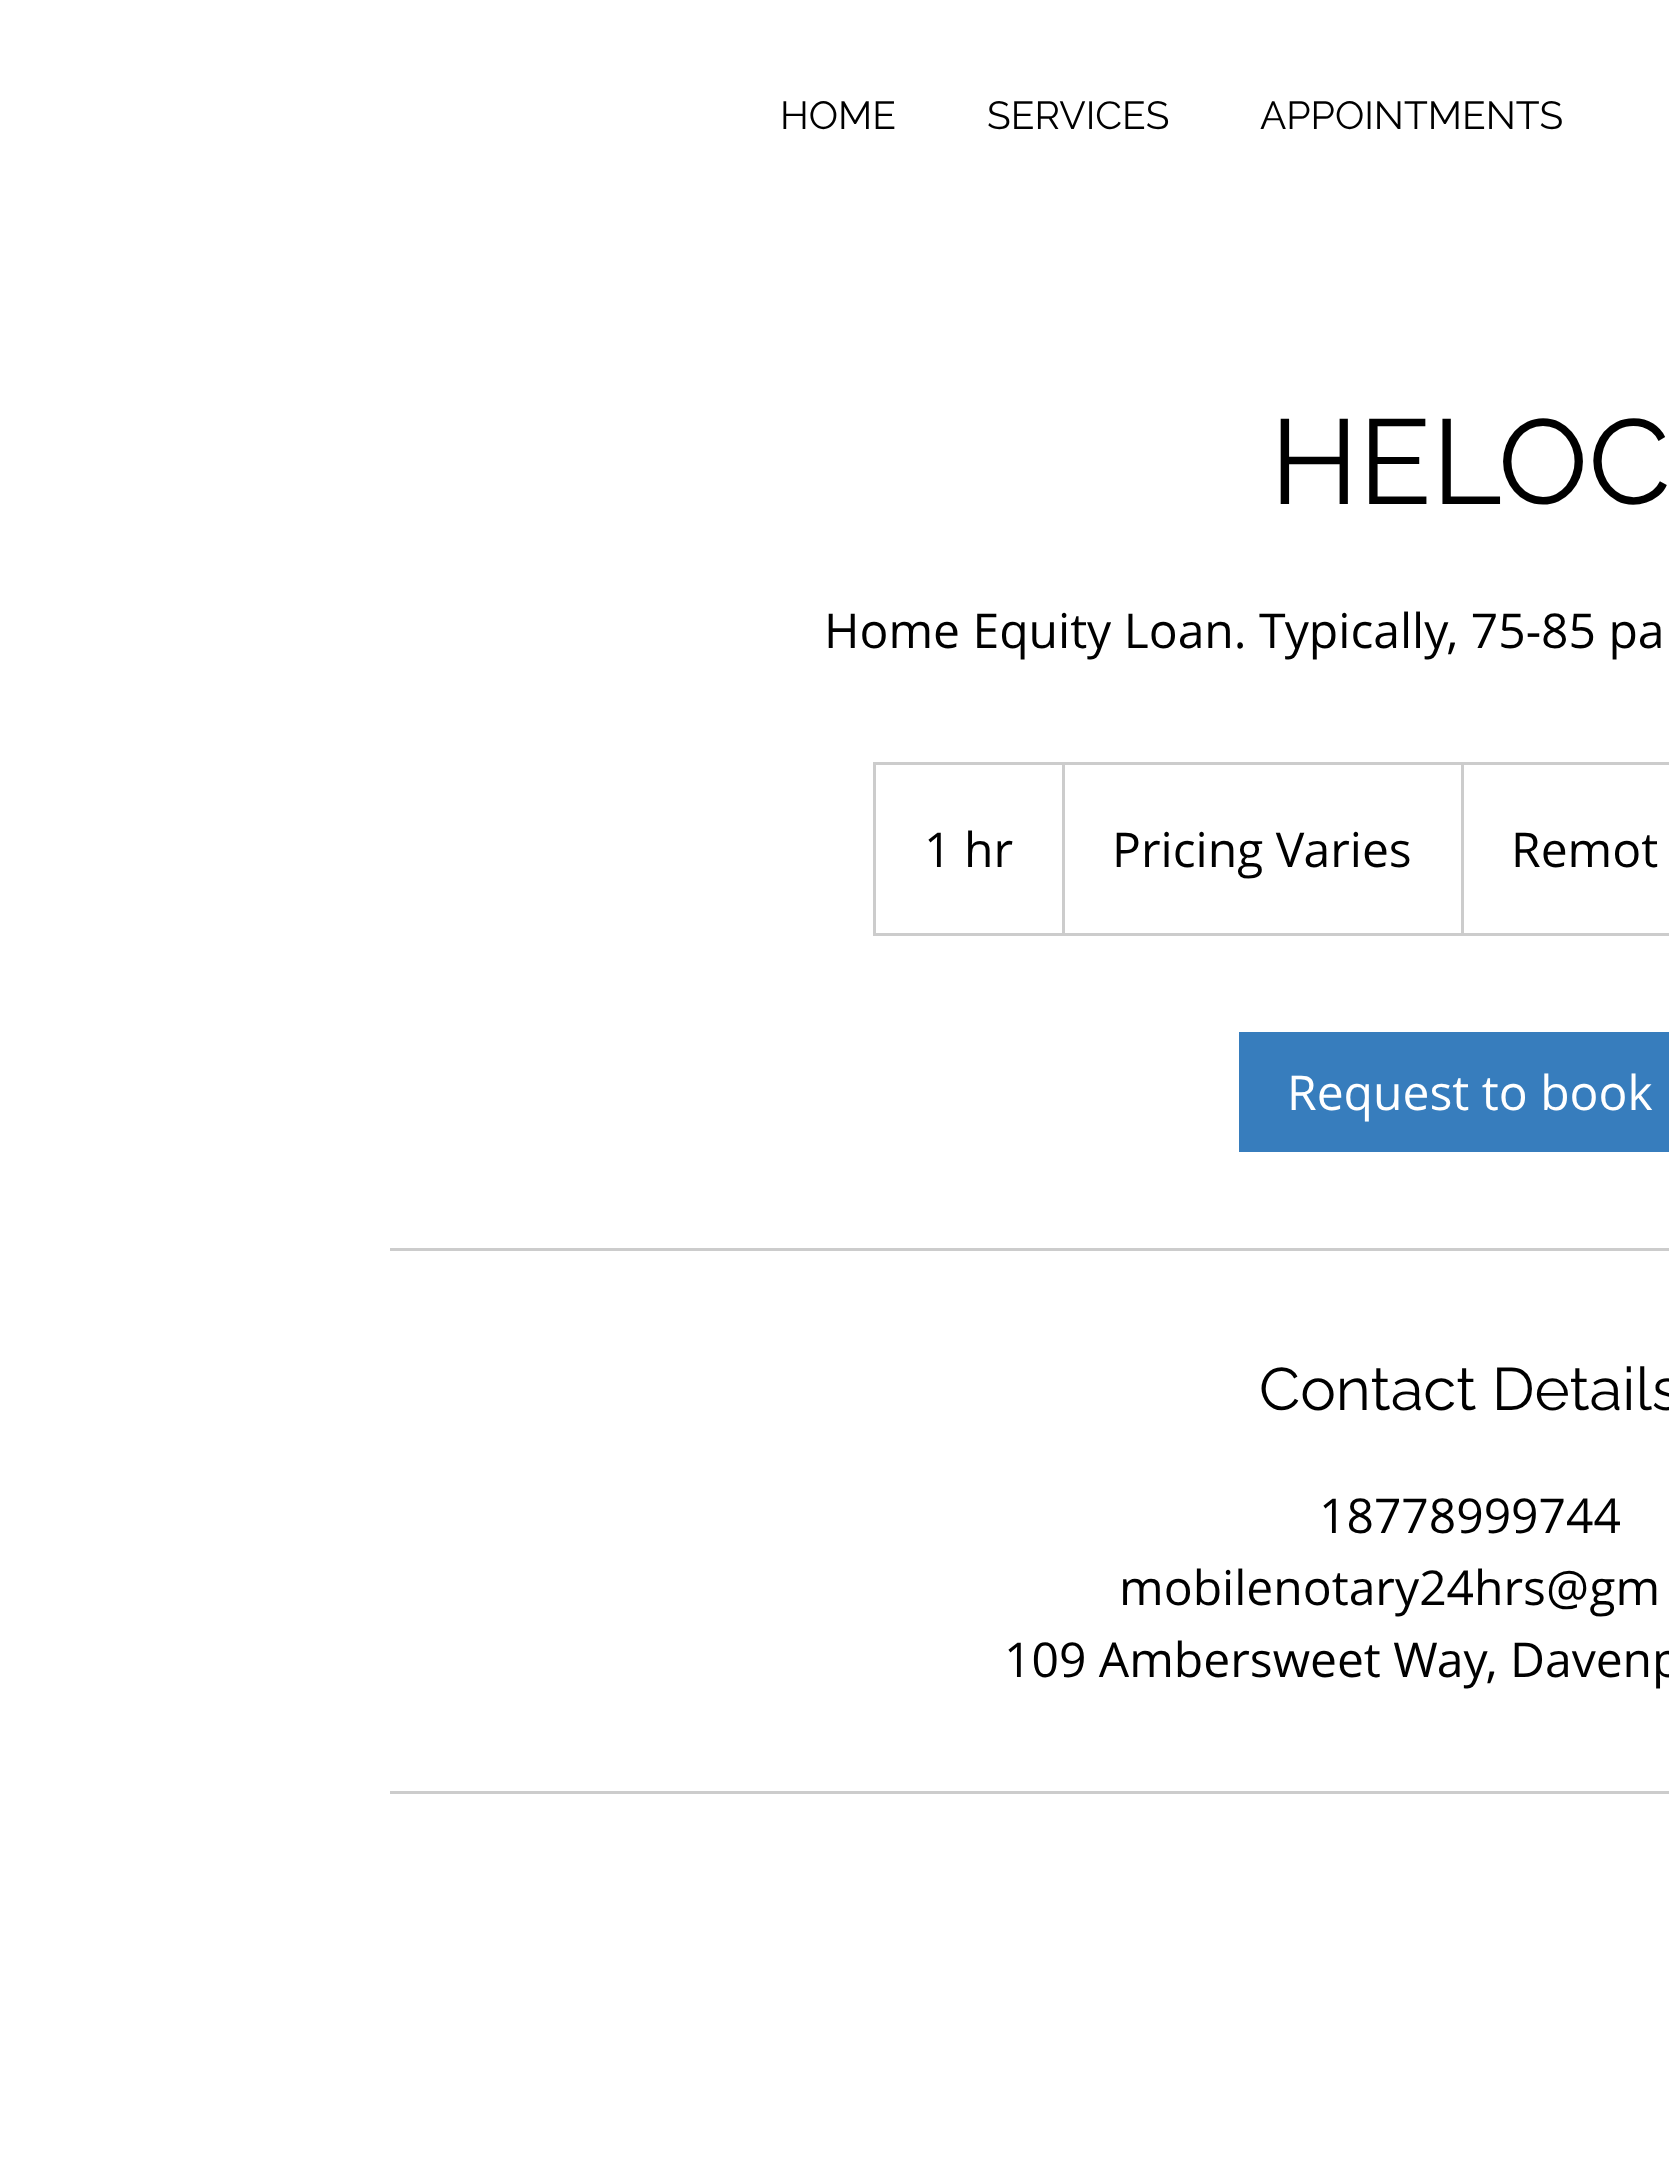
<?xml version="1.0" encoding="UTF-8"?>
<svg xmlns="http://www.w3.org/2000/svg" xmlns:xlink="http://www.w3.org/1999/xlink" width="1669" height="2183">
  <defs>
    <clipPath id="clip1"><rect x="876" y="765" width="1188" height="168" /></clipPath>
  </defs>
  <rect width="100%" height="100%" fill="#ffffff" />
  <rect x="874.5" y="763.5" width="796" height="171" fill="none" stroke="#cccccc" stroke-width="3" />
  <g clip-path="url(#clip1)">
    <path d="M 1062 933 v -171 l 3 3 v 168 z" fill="#cccccc" />
    <path d="M 1461 933 v -171 l 3 3 v 168 z" fill="#cccccc" />
  </g>
  <rect x="1239" y="1032" width="430" height="120" fill="#377dbd" />
  <rect x="390" y="1248" width="1279" height="3" fill="#cccccc" />
  <rect x="390" y="1791" width="1279" height="3" fill="#cccccc" />
  <text x="780" y="129" style="font-family: Raleway; font-size: 39px; fill: #000000">HOME</text>
  <text x="987" y="129" style="font-family: Raleway; font-size: 39px; fill: #000000">SERVICES</text>
  <text x="1260" y="129" style="font-family: Raleway; font-size: 39px; fill: #000000">APPOINTMENTS</text>
  <text x="1270" y="504" style="font-family: Raleway; font-size: 120px; fill: #000000">HELOC</text>
  <text x="824" y="648" style="font-family: Open Sans; font-size: 48px; fill: #000000">Home Equity Loan. Typically, 75-85 pa</text>
  <text x="924" y="867" style="font-family: Open Sans; font-size: 48px; fill: #000000">1 hr</text>
  <text x="1112" y="867" style="font-family: Open Sans; font-size: 48px; fill: #000000">Pricing Varies</text>
  <text x="1511" y="867" style="font-family: Open Sans; font-size: 48px; fill: #000000">Remot</text>
  <text x="1287" y="1110" style="font-family: Open Sans; font-size: 48px; fill: #ffffff">Request to book</text>
  <text x="1259" y="1410" style="font-family: Raleway; font-size: 60px; fill: #000000">Contact Details</text>
  <text x="1319" y="1533" style="font-family: Open Sans; font-size: 48px; fill: #000000">18778999744</text>
  <text x="1119" y="1605" style="font-family: Open Sans; font-size: 48px; fill: #000000">mobilenotary24hrs@gm</text>
  <text x="1004" y="1677" style="font-family: Open Sans; font-size: 48px; fill: #000000">109 Ambersweet Way, Davenp</text>
</svg>
